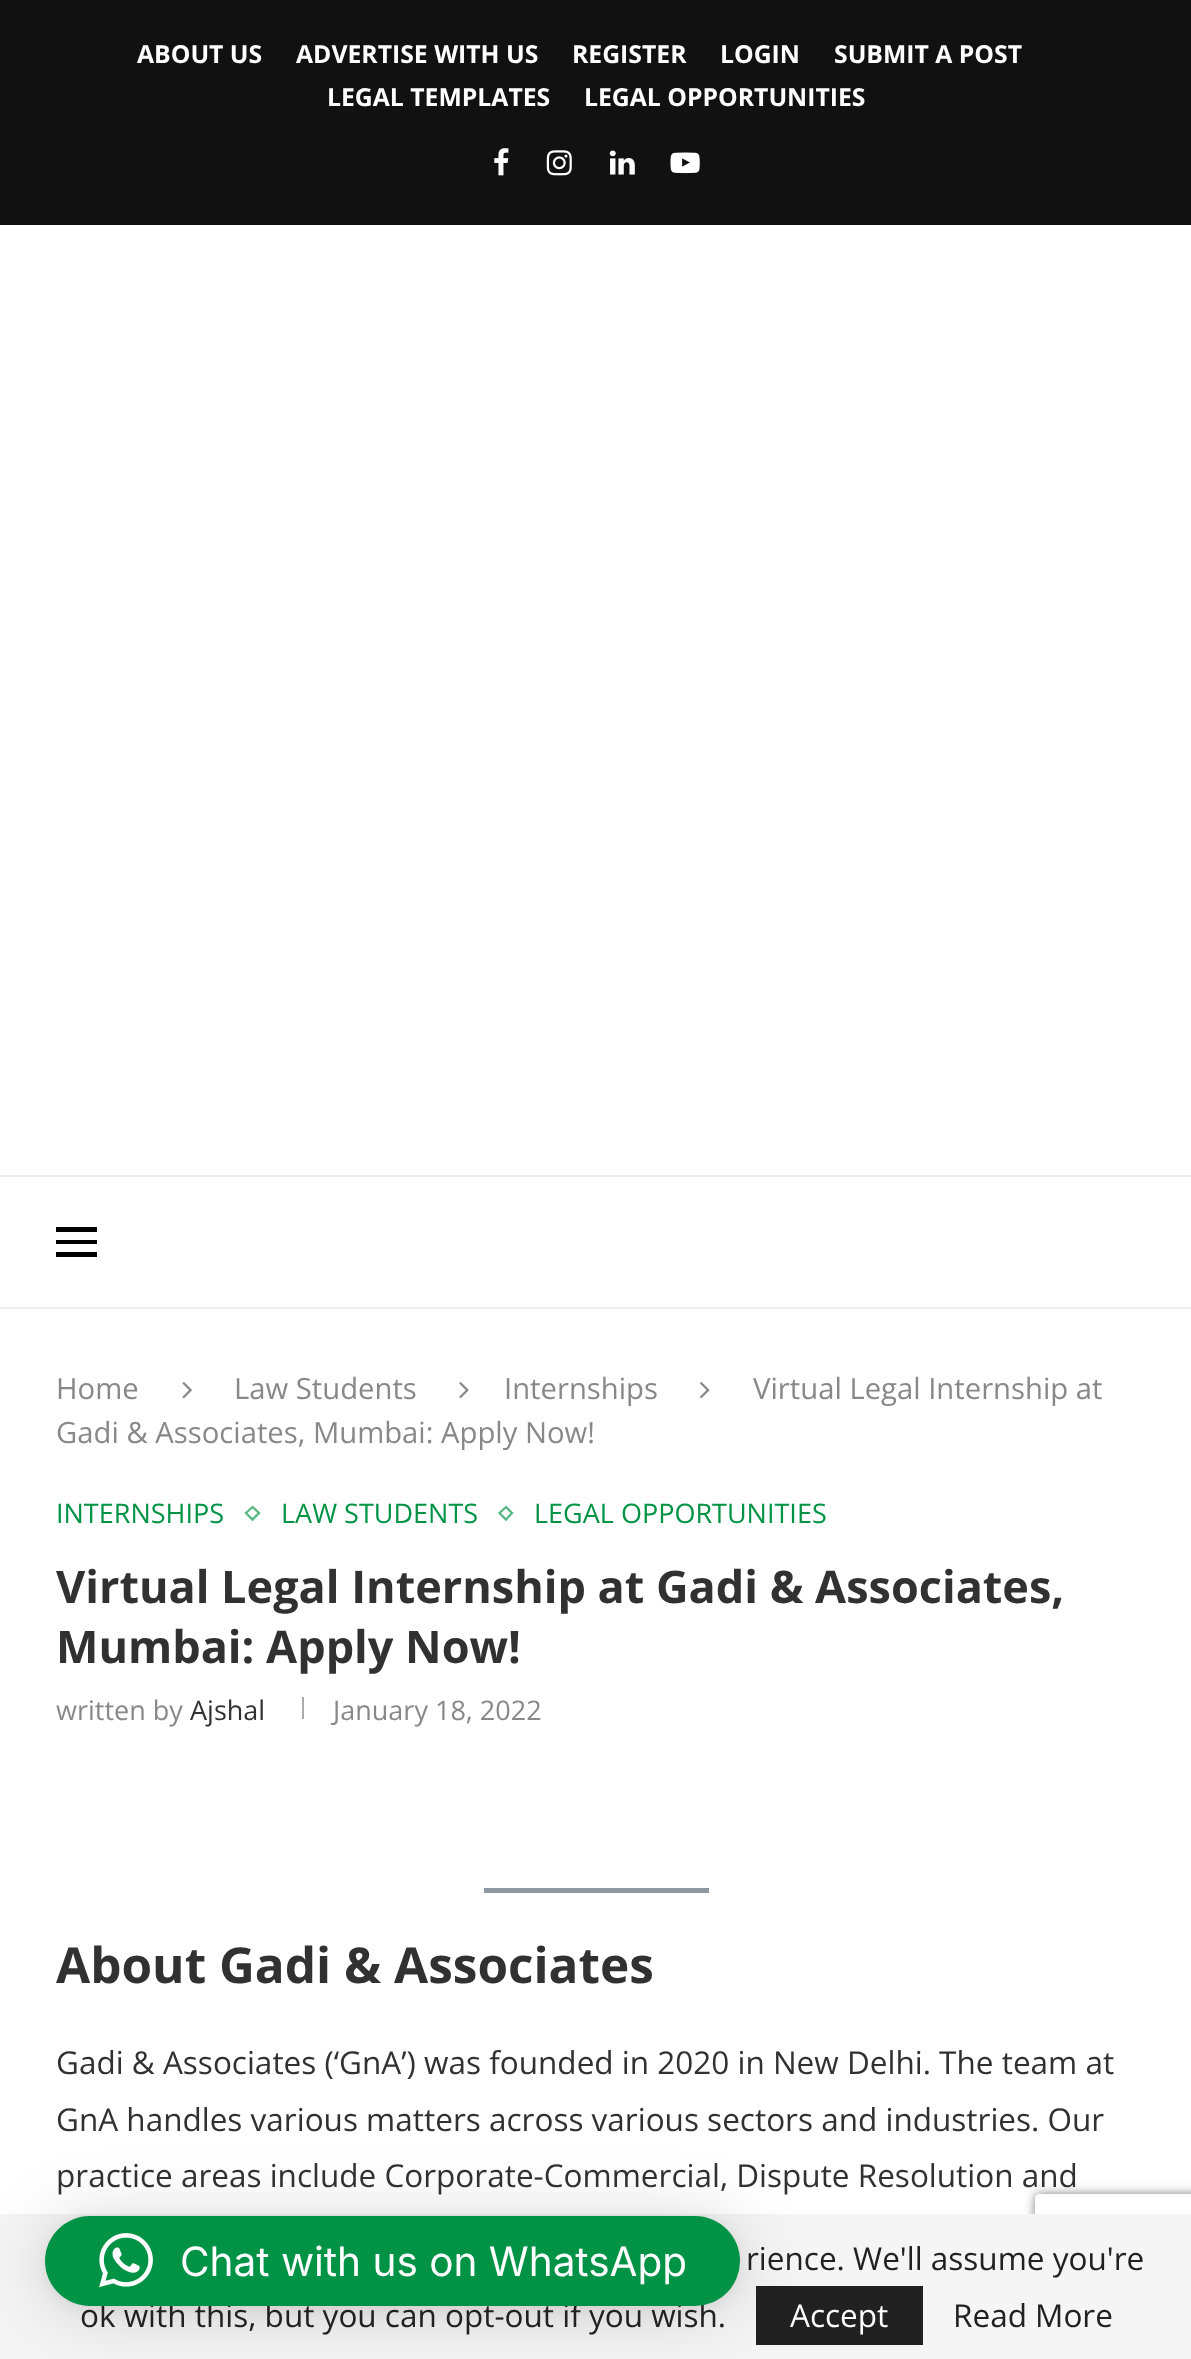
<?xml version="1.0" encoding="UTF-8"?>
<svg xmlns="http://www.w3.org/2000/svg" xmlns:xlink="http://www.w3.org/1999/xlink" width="1191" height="2359">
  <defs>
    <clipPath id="clip1"><path d="M 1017 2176 h 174 v 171 h -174 z m 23 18 h 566 c 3 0 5 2 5 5 v 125 c 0 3 -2 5 -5 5 h -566 c -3 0 -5 -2 -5 -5 v -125 c 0 -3 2 -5 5 -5 z" clip-rule="evenodd" /></clipPath>
  </defs>
  <rect width="100%" height="100%" fill="#ffffff" />
  <rect width="1191" height="225" fill="#111111" />
  <image x="494" y="148" width="15" height="28" xlink:href="image1.png" />
  <image x="546" y="150" width="26" height="26" xlink:href="image2.png" />
  <image x="609" y="150" width="26" height="25" xlink:href="image3.png" />
  <image x="670" y="152" width="30" height="22" xlink:href="image4.png" />
  <rect y="1175" width="1191" height="2" fill="#ececec" />
  <rect y="1307" width="1191" height="2" fill="#ececec" />
  <rect x="56" y="1227" width="41" height="5" fill="#000000" />
  <rect x="56" y="1240" width="41" height="4" fill="#000000" />
  <rect x="56" y="1252" width="41" height="5" fill="#000000" />
  <image x="182" y="1382" width="10" height="17" xlink:href="image5.png" />
  <image x="459" y="1382" width="10" height="17" xlink:href="image6.png" />
  <image x="700" y="1382" width="10" height="17" xlink:href="image7.png" />
  <path d="M 252.5 1507 l 6.5 6 l -6.5 6.5 l -6.5 -6.5 z" fill="none" stroke="#59b986" stroke-width="2.3" />
  <path d="M 506 1507 l 6 6 l -6 6.5 l -6.5 -6.5 z" fill="none" stroke="#59b986" stroke-width="2.3" />
  <rect x="302" y="1697" width="2" height="22" fill="#acacac" />
  <rect x="484" y="1888" width="225" height="5" fill="#8f98a1" />
  <g clip-path="url(#clip1)">
    <rect x="1035" y="2194" width="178" height="135" rx="5" fill="#808080" filter="blur(5.5px)" />
  </g>
  <rect y="2214" width="1191" height="145" fill="#f5f5f5" />
  <rect x="756" y="2286" width="167" height="59" fill="#212121" />
  <rect x="45" y="2221" width="695" height="90" rx="45" fill="#000000" fill-opacity="0.16" filter="blur(36px)" />
  <rect x="45" y="2219" width="695" height="90" rx="45" fill="#000000" fill-opacity="0.06" filter="blur(7px)" />
  <text x="137" y="63" style="font-family: Open Sans; font-size: 24.75px; font-weight: bold; fill: #ffffff">ABOUT US</text>
  <text x="296" y="63" style="font-family: Open Sans; font-size: 24.75px; font-weight: bold; fill: #ffffff">ADVERTISE WITH US</text>
  <text x="572" y="63" style="font-family: Open Sans; font-size: 24.75px; font-weight: bold; fill: #ffffff">REGISTER</text>
  <text x="720" y="63" style="font-family: Open Sans; font-size: 24.75px; font-weight: bold; fill: #ffffff">LOGIN</text>
  <text x="834" y="63" style="font-family: Open Sans; font-size: 24.75px; font-weight: bold; fill: #ffffff">SUBMIT A POST</text>
  <text x="327" y="106" style="font-family: Open Sans; font-size: 24.75px; font-weight: bold; fill: #ffffff">LEGAL TEMPLATES</text>
  <text x="584" y="106" style="font-family: Open Sans; font-size: 24.75px; font-weight: bold; fill: #ffffff">LEGAL OPPORTUNITIES</text>
  <text x="56" y="1399" style="font-family: Open Sans; font-size: 29.25px; fill: #888888">Home</text>
  <text x="234" y="1399" style="font-family: Open Sans; font-size: 29.25px; fill: #888888">Law Students</text>
  <text x="504" y="1399" style="font-family: Open Sans; font-size: 29.25px; fill: #888888">Internships</text>
  <text x="753" y="1399" style="font-family: Open Sans; font-size: 29.25px; fill: #888888">Virtual Legal Internship at</text>
  <text x="56" y="1443" style="font-family: Open Sans; font-size: 29.25px; fill: #888888">Gadi &amp; Associates, Mumbai: Apply Now!</text>
  <text x="56" y="1523" style="font-family: Open Sans; font-size: 27px; fill: #009345">INTERNSHIPS</text>
  <text x="281" y="1523" style="font-family: Open Sans; font-size: 27px; fill: #009345">LAW STUDENTS</text>
  <text x="534" y="1523" style="font-family: Open Sans; font-size: 27px; fill: #009345">LEGAL OPPORTUNITIES</text>
  <text x="56" y="1603" style="font-family: Open Sans; font-size: 45px; font-weight: bold; fill: #313131">Virtual Legal Internship at Gadi &amp; Associates,</text>
  <text x="56" y="1663" style="font-family: Open Sans; font-size: 45px; font-weight: bold; fill: #313131">Mumbai: Apply Now!</text>
  <text x="56" y="1720" style="font-family: Open Sans; font-size: 27px; fill: #888888">written by</text>
  <text x="190" y="1720" style="font-family: Open Sans; font-size: 27px; fill: #313131">Ajshal</text>
  <text x="333" y="1720" style="font-family: Open Sans; font-size: 27px; fill: #888888">January 18, 2022</text>
  <text x="56" y="1983" style="font-family: Open Sans; font-size: 49.5px; font-weight: bold; fill: #313131">About Gadi &amp; Associates</text>
  <text x="56" y="2074" style="font-family: Open Sans; font-size: 31.5px; fill: #313131">Gadi &amp; Associates (‘GnA’) was founded in 2020 in New Delhi. The team at</text>
  <text x="56" y="2131" style="font-family: Open Sans; font-size: 31.5px; fill: #313131">GnA handles various matters across various sectors and industries. Our</text>
  <text x="56" y="2187" style="font-family: Open Sans; font-size: 31.5px; fill: #313131">practice areas include Corporate-Commercial, Dispute Resolution and</text>
  <text x="746" y="2270" style="font-family: Open Sans; font-size: 31.5px; fill: #212121">rience. We'll assume you're</text>
  <text x="80" y="2327" style="font-family: Open Sans; font-size: 31.5px; fill: #212121">ok with this, but you can opt-out if you wish.</text>
  <rect x="45" y="2216" width="695" height="90" rx="45" fill="#009345" />
  <text x="180" y="2276" style="font-family: Inter; font-size: 40.5px; fill: #ffffff">Chat with us on WhatsApp</text>
  <image x="99" y="2233" width="54" height="55" xlink:href="image8.png" />
  <text x="790" y="2327" style="font-family: Open Sans; font-size: 31.5px; fill: #ffffff">Accept</text>
  <text x="953" y="2327" style="font-family: Open Sans; font-size: 31.5px; fill: #212121">Read More</text>
</svg>
